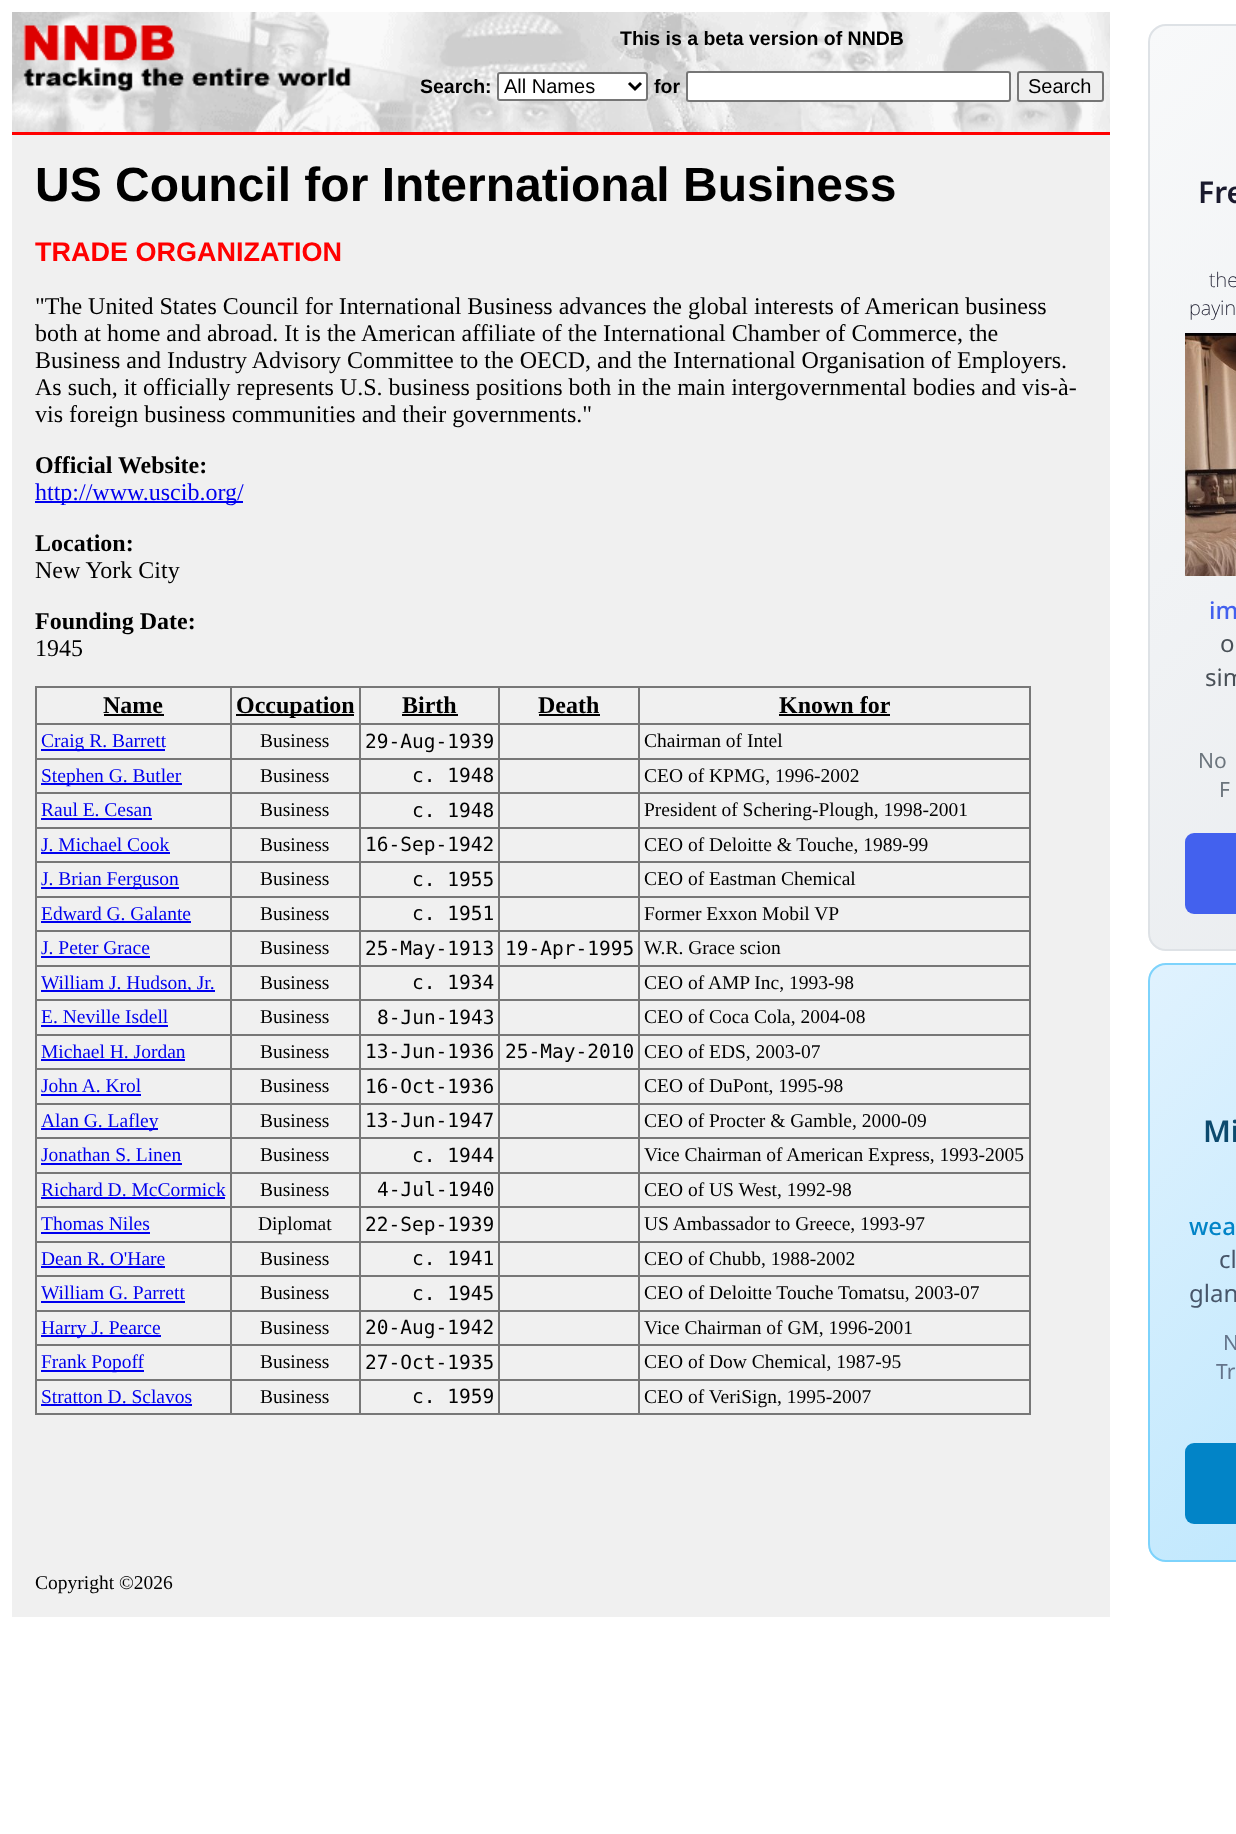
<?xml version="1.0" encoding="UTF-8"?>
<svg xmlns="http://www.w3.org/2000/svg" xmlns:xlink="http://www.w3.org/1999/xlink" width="1236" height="1834">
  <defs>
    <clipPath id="clip1"><rect x="1148" y="24" width="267" height="927" rx="18" /></clipPath>
    <linearGradient id="g1" gradientUnits="userSpaceOnUse" x1="984" y1="191" x2="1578" y2="785"><stop offset="0" stop-color="#f8f9fa" /><stop offset="1" stop-color="#e9ecef" /></linearGradient>
    <clipPath id="clip2"><rect x="1148" y="963" width="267" height="599" rx="18" /></clipPath>
    <linearGradient id="g2" gradientUnits="userSpaceOnUse" x1="1066" y1="1047" x2="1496" y2="1477"><stop offset="0" stop-color="#e0f2fe" /><stop offset="1" stop-color="#bae6fd" /></linearGradient>
  </defs>
  <rect width="100%" height="100%" fill="#ffffff" />
  <image x="12" y="12" width="1098" height="120" xlink:href="image1.png" />
  <image x="23" y="25" width="329" height="67" xlink:href="image2.png" />
  <rect x="498" y="73" width="149" height="27" rx="2" fill="#ffffff" stroke="#767676" stroke-width="2" />
  <path d="M 629 83 l 6 6 l 6 -6" fill="none" stroke="#000000" stroke-width="3" />
  <rect x="687" y="72" width="323" height="29" rx="2" fill="#ffffff" stroke="#767676" stroke-width="2" />
  <rect x="1018" y="72" width="85" height="29" rx="2" fill="#efefef" stroke="#767676" stroke-width="2" />
  <rect x="12" y="132" width="1098" height="3" fill="#ff0000" />
  <rect x="12" y="135" width="1098" height="1482" fill="#f0f0f0" />
  <rect x="35" y="501" width="208" height="2" fill="#0000ee" />
  <rect x="35" y="686" width="996" height="2" fill="#777777" />
  <rect x="1029" y="686" width="2" height="729" fill="#777777" />
  <rect x="35" y="1413" width="996" height="2" fill="#777777" />
  <rect x="35" y="686" width="2" height="729" fill="#777777" />
  <rect x="104" y="714" width="60" height="2" fill="#000000" />
  <rect x="638" y="723" width="393" height="2" fill="#777777" />
  <rect x="638" y="758" width="393" height="2" fill="#777777" />
  <rect x="638" y="792" width="393" height="2" fill="#777777" />
  <rect x="638" y="827" width="393" height="2" fill="#777777" />
  <rect x="638" y="861" width="393" height="2" fill="#777777" />
  <rect x="638" y="896" width="393" height="2" fill="#777777" />
  <rect x="638" y="930" width="393" height="2" fill="#777777" />
  <rect x="638" y="965" width="393" height="2" fill="#777777" />
  <rect x="638" y="999" width="393" height="2" fill="#777777" />
  <rect x="638" y="1034" width="393" height="2" fill="#777777" />
  <rect x="638" y="1068" width="393" height="2" fill="#777777" />
  <rect x="638" y="1103" width="393" height="2" fill="#777777" />
  <rect x="638" y="1137" width="393" height="2" fill="#777777" />
  <rect x="638" y="1172" width="393" height="2" fill="#777777" />
  <rect x="638" y="1206" width="393" height="2" fill="#777777" />
  <rect x="638" y="1241" width="393" height="2" fill="#777777" />
  <rect x="638" y="1275" width="393" height="2" fill="#777777" />
  <rect x="638" y="1310" width="393" height="2" fill="#777777" />
  <rect x="638" y="1344" width="393" height="2" fill="#777777" />
  <rect x="638" y="1379" width="393" height="2" fill="#777777" />
  <rect x="638" y="1379" width="2" height="36" fill="#777777" />
  <rect x="498" y="1379" width="141" height="2" fill="#777777" />
  <rect x="638" y="1344" width="2" height="36" fill="#777777" />
  <rect x="498" y="1344" width="141" height="2" fill="#777777" />
  <rect x="638" y="1310" width="2" height="36" fill="#777777" />
  <rect x="498" y="1310" width="141" height="2" fill="#777777" />
  <rect x="638" y="1275" width="2" height="36" fill="#777777" />
  <rect x="498" y="1275" width="141" height="2" fill="#777777" />
  <rect x="638" y="1241" width="2" height="36" fill="#777777" />
  <rect x="498" y="1241" width="141" height="2" fill="#777777" />
  <rect x="638" y="1206" width="2" height="36" fill="#777777" />
  <rect x="498" y="1206" width="141" height="2" fill="#777777" />
  <rect x="638" y="1172" width="2" height="36" fill="#777777" />
  <rect x="498" y="1172" width="141" height="2" fill="#777777" />
  <rect x="638" y="1137" width="2" height="36" fill="#777777" />
  <rect x="498" y="1137" width="141" height="2" fill="#777777" />
  <rect x="638" y="1103" width="2" height="36" fill="#777777" />
  <rect x="498" y="1103" width="141" height="2" fill="#777777" />
  <rect x="638" y="1068" width="2" height="36" fill="#777777" />
  <rect x="498" y="1068" width="141" height="2" fill="#777777" />
  <rect x="638" y="1034" width="2" height="36" fill="#777777" />
  <rect x="498" y="1034" width="141" height="2" fill="#777777" />
  <rect x="638" y="999" width="2" height="36" fill="#777777" />
  <rect x="498" y="999" width="141" height="2" fill="#777777" />
  <rect x="638" y="965" width="2" height="36" fill="#777777" />
  <rect x="498" y="965" width="141" height="2" fill="#777777" />
  <rect x="638" y="930" width="2" height="36" fill="#777777" />
  <rect x="498" y="930" width="141" height="2" fill="#777777" />
  <rect x="638" y="896" width="2" height="36" fill="#777777" />
  <rect x="498" y="896" width="141" height="2" fill="#777777" />
  <rect x="638" y="861" width="2" height="36" fill="#777777" />
  <rect x="498" y="861" width="141" height="2" fill="#777777" />
  <rect x="638" y="827" width="2" height="36" fill="#777777" />
  <rect x="498" y="827" width="141" height="2" fill="#777777" />
  <rect x="638" y="792" width="2" height="36" fill="#777777" />
  <rect x="498" y="792" width="141" height="2" fill="#777777" />
  <rect x="638" y="758" width="2" height="36" fill="#777777" />
  <rect x="498" y="758" width="141" height="2" fill="#777777" />
  <rect x="638" y="723" width="2" height="36" fill="#777777" />
  <rect x="498" y="723" width="141" height="2" fill="#777777" />
  <rect x="498" y="1379" width="2" height="36" fill="#777777" />
  <rect x="359" y="1379" width="141" height="2" fill="#777777" />
  <rect x="498" y="1344" width="2" height="36" fill="#777777" />
  <rect x="359" y="1344" width="141" height="2" fill="#777777" />
  <rect x="498" y="1310" width="2" height="36" fill="#777777" />
  <rect x="359" y="1310" width="141" height="2" fill="#777777" />
  <rect x="498" y="1275" width="2" height="36" fill="#777777" />
  <rect x="359" y="1275" width="141" height="2" fill="#777777" />
  <rect x="498" y="1241" width="2" height="36" fill="#777777" />
  <rect x="359" y="1241" width="141" height="2" fill="#777777" />
  <rect x="498" y="1206" width="2" height="36" fill="#777777" />
  <rect x="359" y="1206" width="141" height="2" fill="#777777" />
  <rect x="498" y="1172" width="2" height="36" fill="#777777" />
  <rect x="359" y="1172" width="141" height="2" fill="#777777" />
  <rect x="498" y="1137" width="2" height="36" fill="#777777" />
  <rect x="359" y="1137" width="141" height="2" fill="#777777" />
  <rect x="498" y="1103" width="2" height="36" fill="#777777" />
  <rect x="359" y="1103" width="141" height="2" fill="#777777" />
  <rect x="498" y="1068" width="2" height="36" fill="#777777" />
  <rect x="359" y="1068" width="141" height="2" fill="#777777" />
  <rect x="498" y="1034" width="2" height="36" fill="#777777" />
  <rect x="359" y="1034" width="141" height="2" fill="#777777" />
  <rect x="498" y="999" width="2" height="36" fill="#777777" />
  <rect x="359" y="999" width="141" height="2" fill="#777777" />
  <rect x="498" y="965" width="2" height="36" fill="#777777" />
  <rect x="359" y="965" width="141" height="2" fill="#777777" />
  <rect x="498" y="930" width="2" height="36" fill="#777777" />
  <rect x="359" y="930" width="141" height="2" fill="#777777" />
  <rect x="498" y="896" width="2" height="36" fill="#777777" />
  <rect x="359" y="896" width="141" height="2" fill="#777777" />
  <rect x="498" y="861" width="2" height="36" fill="#777777" />
  <rect x="359" y="861" width="141" height="2" fill="#777777" />
  <rect x="498" y="827" width="2" height="36" fill="#777777" />
  <rect x="359" y="827" width="141" height="2" fill="#777777" />
  <rect x="498" y="792" width="2" height="36" fill="#777777" />
  <rect x="359" y="792" width="141" height="2" fill="#777777" />
  <rect x="498" y="758" width="2" height="36" fill="#777777" />
  <rect x="359" y="758" width="141" height="2" fill="#777777" />
  <rect x="498" y="723" width="2" height="36" fill="#777777" />
  <rect x="359" y="723" width="141" height="2" fill="#777777" />
  <rect x="359" y="1379" width="2" height="36" fill="#777777" />
  <rect x="230" y="1379" width="130" height="2" fill="#777777" />
  <rect x="359" y="1344" width="2" height="36" fill="#777777" />
  <rect x="230" y="1344" width="130" height="2" fill="#777777" />
  <rect x="359" y="1310" width="2" height="36" fill="#777777" />
  <rect x="230" y="1310" width="130" height="2" fill="#777777" />
  <rect x="359" y="1275" width="2" height="36" fill="#777777" />
  <rect x="230" y="1275" width="130" height="2" fill="#777777" />
  <rect x="359" y="1241" width="2" height="36" fill="#777777" />
  <rect x="230" y="1241" width="130" height="2" fill="#777777" />
  <rect x="359" y="1206" width="2" height="36" fill="#777777" />
  <rect x="230" y="1206" width="130" height="2" fill="#777777" />
  <rect x="359" y="1172" width="2" height="36" fill="#777777" />
  <rect x="230" y="1172" width="130" height="2" fill="#777777" />
  <rect x="359" y="1137" width="2" height="36" fill="#777777" />
  <rect x="230" y="1137" width="130" height="2" fill="#777777" />
  <rect x="359" y="1103" width="2" height="36" fill="#777777" />
  <rect x="230" y="1103" width="130" height="2" fill="#777777" />
  <rect x="359" y="1068" width="2" height="36" fill="#777777" />
  <rect x="230" y="1068" width="130" height="2" fill="#777777" />
  <rect x="359" y="1034" width="2" height="36" fill="#777777" />
  <rect x="230" y="1034" width="130" height="2" fill="#777777" />
  <rect x="359" y="999" width="2" height="36" fill="#777777" />
  <rect x="230" y="999" width="130" height="2" fill="#777777" />
  <rect x="359" y="965" width="2" height="36" fill="#777777" />
  <rect x="230" y="965" width="130" height="2" fill="#777777" />
  <rect x="359" y="930" width="2" height="36" fill="#777777" />
  <rect x="230" y="930" width="130" height="2" fill="#777777" />
  <rect x="359" y="896" width="2" height="36" fill="#777777" />
  <rect x="230" y="896" width="130" height="2" fill="#777777" />
  <rect x="359" y="861" width="2" height="36" fill="#777777" />
  <rect x="230" y="861" width="130" height="2" fill="#777777" />
  <rect x="359" y="827" width="2" height="36" fill="#777777" />
  <rect x="230" y="827" width="130" height="2" fill="#777777" />
  <rect x="359" y="792" width="2" height="36" fill="#777777" />
  <rect x="230" y="792" width="130" height="2" fill="#777777" />
  <rect x="359" y="758" width="2" height="36" fill="#777777" />
  <rect x="230" y="758" width="130" height="2" fill="#777777" />
  <rect x="359" y="723" width="2" height="36" fill="#777777" />
  <rect x="230" y="723" width="130" height="2" fill="#777777" />
  <rect x="230" y="1379" width="2" height="36" fill="#777777" />
  <rect x="35" y="1379" width="196" height="2" fill="#777777" />
  <rect x="230" y="1344" width="2" height="36" fill="#777777" />
  <rect x="35" y="1344" width="196" height="2" fill="#777777" />
  <rect x="230" y="1310" width="2" height="36" fill="#777777" />
  <rect x="35" y="1310" width="196" height="2" fill="#777777" />
  <rect x="230" y="1275" width="2" height="36" fill="#777777" />
  <rect x="35" y="1275" width="196" height="2" fill="#777777" />
  <rect x="230" y="1241" width="2" height="36" fill="#777777" />
  <rect x="35" y="1241" width="196" height="2" fill="#777777" />
  <rect x="230" y="1206" width="2" height="36" fill="#777777" />
  <rect x="35" y="1206" width="196" height="2" fill="#777777" />
  <rect x="230" y="1172" width="2" height="36" fill="#777777" />
  <rect x="35" y="1172" width="196" height="2" fill="#777777" />
  <rect x="230" y="1137" width="2" height="36" fill="#777777" />
  <rect x="35" y="1137" width="196" height="2" fill="#777777" />
  <rect x="230" y="1103" width="2" height="36" fill="#777777" />
  <rect x="35" y="1103" width="196" height="2" fill="#777777" />
  <rect x="230" y="1068" width="2" height="36" fill="#777777" />
  <rect x="35" y="1068" width="196" height="2" fill="#777777" />
  <rect x="230" y="1034" width="2" height="36" fill="#777777" />
  <rect x="35" y="1034" width="196" height="2" fill="#777777" />
  <rect x="230" y="999" width="2" height="36" fill="#777777" />
  <rect x="35" y="999" width="196" height="2" fill="#777777" />
  <rect x="230" y="965" width="2" height="36" fill="#777777" />
  <rect x="35" y="965" width="196" height="2" fill="#777777" />
  <rect x="230" y="930" width="2" height="36" fill="#777777" />
  <rect x="35" y="930" width="196" height="2" fill="#777777" />
  <rect x="230" y="896" width="2" height="36" fill="#777777" />
  <rect x="35" y="896" width="196" height="2" fill="#777777" />
  <rect x="230" y="861" width="2" height="36" fill="#777777" />
  <rect x="35" y="861" width="196" height="2" fill="#777777" />
  <rect x="230" y="827" width="2" height="36" fill="#777777" />
  <rect x="35" y="827" width="196" height="2" fill="#777777" />
  <rect x="230" y="792" width="2" height="36" fill="#777777" />
  <rect x="35" y="792" width="196" height="2" fill="#777777" />
  <rect x="230" y="758" width="2" height="36" fill="#777777" />
  <rect x="35" y="758" width="196" height="2" fill="#777777" />
  <rect x="230" y="723" width="2" height="36" fill="#777777" />
  <rect x="35" y="723" width="196" height="2" fill="#777777" />
  <rect x="230" y="686" width="2" height="39" fill="#777777" />
  <rect x="236" y="714" width="118" height="2" fill="#000000" />
  <rect x="359" y="686" width="2" height="39" fill="#777777" />
  <rect x="402" y="714" width="56" height="2" fill="#000000" />
  <rect x="498" y="686" width="2" height="39" fill="#777777" />
  <rect x="539" y="714" width="61" height="2" fill="#000000" />
  <rect x="638" y="686" width="2" height="39" fill="#777777" />
  <rect x="779" y="714" width="111" height="2" fill="#000000" />
  <rect x="41" y="749" width="124" height="2" fill="#0000ee" />
  <rect x="41" y="783" width="141" height="2" fill="#0000ee" />
  <rect x="41" y="818" width="111" height="2" fill="#0000ee" />
  <rect x="41" y="852" width="129" height="2" fill="#0000ee" />
  <rect x="41" y="887" width="138" height="2" fill="#0000ee" />
  <rect x="41" y="921" width="150" height="2" fill="#0000ee" />
  <rect x="41" y="956" width="109" height="2" fill="#0000ee" />
  <rect x="41" y="990" width="174" height="2" fill="#0000ee" />
  <rect x="41" y="1025" width="127" height="2" fill="#0000ee" />
  <rect x="41" y="1059" width="144" height="2" fill="#0000ee" />
  <rect x="41" y="1094" width="100" height="2" fill="#0000ee" />
  <rect x="41" y="1128" width="117" height="2" fill="#0000ee" />
  <rect x="41" y="1163" width="141" height="2" fill="#0000ee" />
  <rect x="41" y="1197" width="184" height="2" fill="#0000ee" />
  <rect x="41" y="1232" width="109" height="2" fill="#0000ee" />
  <rect x="41" y="1266" width="124" height="2" fill="#0000ee" />
  <rect x="41" y="1301" width="144" height="2" fill="#0000ee" />
  <rect x="41" y="1335" width="120" height="2" fill="#0000ee" />
  <rect x="41" y="1370" width="103" height="2" fill="#0000ee" />
  <rect x="41" y="1404" width="151" height="2" fill="#0000ee" />
  <g clip-path="url(#clip1)">
    <rect x="1149" y="26" width="87" height="924" fill="url(#g1)" />
  </g>
  <rect x="1149" y="25" width="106" height="925" rx="17" fill="none" stroke="#dee2e6" stroke-width="2" />
  <image x="1185" y="333" width="51" height="243" xlink:href="image3.png" />
  <rect x="1185" y="833" width="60" height="81" rx="9" fill="#4361ee" />
  <g clip-path="url(#clip2)">
    <rect x="1149" y="965" width="87" height="595" fill="url(#g2)" />
  </g>
  <rect x="1149" y="964" width="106" height="597" rx="17" fill="none" stroke="#7dd3fc" stroke-width="2" />
  <rect x="1185" y="1443" width="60" height="81" rx="9" fill="#0284c7" />
  <text x="620" y="45" style="font-family: Liberation Sans; font-size: 19.5px; font-weight: bold; fill: #000000">This is a beta version of NNDB</text>
  <text x="420" y="93" style="font-family: Liberation Sans; font-size: 19.5px; font-weight: bold; fill: #000000">Search:</text>
  <text x="504" y="93" style="font-family: Liberation Sans; font-size: 20px; fill: #000000">All Names</text>
  <text x="654" y="93" style="font-family: Liberation Sans; font-size: 19.5px; font-weight: bold; fill: #000000">for</text>
  <text x="1028" y="93" style="font-family: Liberation Sans; font-size: 20px; fill: #000000">Search</text>
  <text x="35" y="201" style="font-family: Liberation Sans; font-size: 48px; font-weight: bold; fill: #000000">US Council for International Business</text>
  <text x="35" y="261" style="font-family: Liberation Sans; font-size: 27px; font-weight: bold; fill: #ff0000">TRADE ORGANIZATION</text>
  <text x="35" y="314" style="font-family: Liberation Serif; font-size: 24px; fill: #000000">"The United States Council for International Business advances the global interests of American business</text>
  <text x="35" y="341" style="font-family: Liberation Serif; font-size: 24px; fill: #000000">both at home and abroad. It is the American affiliate of the International Chamber of Commerce, the</text>
  <text x="35" y="368" style="font-family: Liberation Serif; font-size: 24px; fill: #000000">Business and Industry Advisory Committee to the OECD, and the International Organisation of Employers.</text>
  <text x="35" y="395" style="font-family: Liberation Serif; font-size: 24px; fill: #000000">As such, it officially represents U.S. business positions both in the main intergovernmental bodies and vis-à-</text>
  <text x="35" y="422" style="font-family: Liberation Serif; font-size: 24px; fill: #000000">vis foreign business communities and their governments."</text>
  <text x="35" y="473" style="font-family: Liberation Serif; font-size: 24px; font-weight: bold; fill: #000000">Official Website:</text>
  <text x="35" y="500" style="font-family: Liberation Serif; font-size: 24px; fill: #0000ee">http://www.uscib.org/</text>
  <text x="35" y="551" style="font-family: Liberation Serif; font-size: 24px; font-weight: bold; fill: #000000">Location:</text>
  <text x="35" y="578" style="font-family: Liberation Serif; font-size: 24px; fill: #000000">New York City</text>
  <text x="35" y="629" style="font-family: Liberation Serif; font-size: 24px; font-weight: bold; fill: #000000">Founding Date:</text>
  <text x="35" y="656" style="font-family: Liberation Serif; font-size: 24px; fill: #000000">1945</text>
  <text x="103" y="713" style="font-family: Liberation Serif; font-size: 24px; font-weight: bold; fill: #000000">Name</text>
  <text x="236" y="713" style="font-family: Liberation Serif; font-size: 24px; font-weight: bold; fill: #000000">Occupation</text>
  <text x="402" y="713" style="font-family: Liberation Serif; font-size: 24px; font-weight: bold; fill: #000000">Birth</text>
  <text x="538" y="713" style="font-family: Liberation Serif; font-size: 24px; font-weight: bold; fill: #000000">Death</text>
  <text x="779" y="713" style="font-family: Liberation Serif; font-size: 24px; font-weight: bold; fill: #000000">Known for</text>
  <text x="41" y="747" style="font-family: Liberation Serif; font-size: 19.5px; fill: #0000ee">Craig R. Barrett</text>
  <text x="260" y="747" style="font-family: Liberation Serif; font-size: 19.5px; fill: #000000">Business</text>
  <text x="365" y="748" style="font-family: DejaVu Sans Mono; font-size: 19.5px; fill: #000000">29-Aug-1939</text>
  <text x="644" y="747" style="font-family: Liberation Serif; font-size: 19.5px; fill: #000000">Chairman of Intel</text>
  <text x="41" y="782" style="font-family: Liberation Serif; font-size: 19.5px; fill: #0000ee">Stephen G. Butler</text>
  <text x="260" y="782" style="font-family: Liberation Serif; font-size: 19.5px; fill: #000000">Business</text>
  <text x="412" y="782" style="font-family: DejaVu Sans Mono; font-size: 19.5px; fill: #000000">c. 1948</text>
  <text x="644" y="782" style="font-family: Liberation Serif; font-size: 19.5px; fill: #000000">CEO of KPMG, 1996-2002</text>
  <text x="41" y="816" style="font-family: Liberation Serif; font-size: 19.5px; fill: #0000ee">Raul E. Cesan</text>
  <text x="260" y="816" style="font-family: Liberation Serif; font-size: 19.5px; fill: #000000">Business</text>
  <text x="412" y="817" style="font-family: DejaVu Sans Mono; font-size: 19.5px; fill: #000000">c. 1948</text>
  <text x="644" y="816" style="font-family: Liberation Serif; font-size: 19.5px; fill: #000000">President of Schering-Plough, 1998-2001</text>
  <text x="41" y="851" style="font-family: Liberation Serif; font-size: 19.5px; fill: #0000ee">J. Michael Cook</text>
  <text x="260" y="851" style="font-family: Liberation Serif; font-size: 19.5px; fill: #000000">Business</text>
  <text x="365" y="851" style="font-family: DejaVu Sans Mono; font-size: 19.5px; fill: #000000">16-Sep-1942</text>
  <text x="644" y="851" style="font-family: Liberation Serif; font-size: 19.5px; fill: #000000">CEO of Deloitte &amp; Touche, 1989-99</text>
  <text x="41" y="885" style="font-family: Liberation Serif; font-size: 19.5px; fill: #0000ee">J. Brian Ferguson</text>
  <text x="260" y="885" style="font-family: Liberation Serif; font-size: 19.5px; fill: #000000">Business</text>
  <text x="412" y="886" style="font-family: DejaVu Sans Mono; font-size: 19.5px; fill: #000000">c. 1955</text>
  <text x="644" y="885" style="font-family: Liberation Serif; font-size: 19.5px; fill: #000000">CEO of Eastman Chemical</text>
  <text x="41" y="920" style="font-family: Liberation Serif; font-size: 19.5px; fill: #0000ee">Edward G. Galante</text>
  <text x="260" y="920" style="font-family: Liberation Serif; font-size: 19.5px; fill: #000000">Business</text>
  <text x="412" y="920" style="font-family: DejaVu Sans Mono; font-size: 19.5px; fill: #000000">c. 1951</text>
  <text x="644" y="920" style="font-family: Liberation Serif; font-size: 19.5px; fill: #000000">Former Exxon Mobil VP</text>
  <text x="41" y="954" style="font-family: Liberation Serif; font-size: 19.5px; fill: #0000ee">J. Peter Grace</text>
  <text x="260" y="954" style="font-family: Liberation Serif; font-size: 19.5px; fill: #000000">Business</text>
  <text x="365" y="955" style="font-family: DejaVu Sans Mono; font-size: 19.5px; fill: #000000">25-May-1913</text>
  <text x="505" y="955" style="font-family: DejaVu Sans Mono; font-size: 19.5px; fill: #000000">19-Apr-1995</text>
  <text x="644" y="954" style="font-family: Liberation Serif; font-size: 19.5px; fill: #000000">W.R. Grace scion</text>
  <text x="41" y="989" style="font-family: Liberation Serif; font-size: 19.5px; fill: #0000ee">William J. Hudson, Jr.</text>
  <text x="260" y="989" style="font-family: Liberation Serif; font-size: 19.5px; fill: #000000">Business</text>
  <text x="412" y="989" style="font-family: DejaVu Sans Mono; font-size: 19.5px; fill: #000000">c. 1934</text>
  <text x="644" y="989" style="font-family: Liberation Serif; font-size: 19.5px; fill: #000000">CEO of AMP Inc, 1993-98</text>
  <text x="41" y="1023" style="font-family: Liberation Serif; font-size: 19.5px; fill: #0000ee">E. Neville Isdell</text>
  <text x="260" y="1023" style="font-family: Liberation Serif; font-size: 19.5px; fill: #000000">Business</text>
  <text x="377" y="1024" style="font-family: DejaVu Sans Mono; font-size: 19.5px; fill: #000000">8-Jun-1943</text>
  <text x="644" y="1023" style="font-family: Liberation Serif; font-size: 19.5px; fill: #000000">CEO of Coca Cola, 2004-08</text>
  <text x="41" y="1058" style="font-family: Liberation Serif; font-size: 19.5px; fill: #0000ee">Michael H. Jordan</text>
  <text x="260" y="1058" style="font-family: Liberation Serif; font-size: 19.5px; fill: #000000">Business</text>
  <text x="365" y="1058" style="font-family: DejaVu Sans Mono; font-size: 19.5px; fill: #000000">13-Jun-1936</text>
  <text x="505" y="1058" style="font-family: DejaVu Sans Mono; font-size: 19.5px; fill: #000000">25-May-2010</text>
  <text x="644" y="1058" style="font-family: Liberation Serif; font-size: 19.5px; fill: #000000">CEO of EDS, 2003-07</text>
  <text x="41" y="1092" style="font-family: Liberation Serif; font-size: 19.5px; fill: #0000ee">John A. Krol</text>
  <text x="260" y="1092" style="font-family: Liberation Serif; font-size: 19.5px; fill: #000000">Business</text>
  <text x="365" y="1093" style="font-family: DejaVu Sans Mono; font-size: 19.5px; fill: #000000">16-Oct-1936</text>
  <text x="644" y="1092" style="font-family: Liberation Serif; font-size: 19.5px; fill: #000000">CEO of DuPont, 1995-98</text>
  <text x="41" y="1127" style="font-family: Liberation Serif; font-size: 19.5px; fill: #0000ee">Alan G. Lafley</text>
  <text x="260" y="1127" style="font-family: Liberation Serif; font-size: 19.5px; fill: #000000">Business</text>
  <text x="365" y="1127" style="font-family: DejaVu Sans Mono; font-size: 19.5px; fill: #000000">13-Jun-1947</text>
  <text x="644" y="1127" style="font-family: Liberation Serif; font-size: 19.5px; fill: #000000">CEO of Procter &amp; Gamble, 2000-09</text>
  <text x="41" y="1161" style="font-family: Liberation Serif; font-size: 19.5px; fill: #0000ee">Jonathan S. Linen</text>
  <text x="260" y="1161" style="font-family: Liberation Serif; font-size: 19.5px; fill: #000000">Business</text>
  <text x="412" y="1162" style="font-family: DejaVu Sans Mono; font-size: 19.5px; fill: #000000">c. 1944</text>
  <text x="644" y="1161" style="font-family: Liberation Serif; font-size: 19.5px; fill: #000000">Vice Chairman of American Express, 1993-2005</text>
  <text x="41" y="1196" style="font-family: Liberation Serif; font-size: 19.5px; fill: #0000ee">Richard D. McCormick</text>
  <text x="260" y="1196" style="font-family: Liberation Serif; font-size: 19.5px; fill: #000000">Business</text>
  <text x="377" y="1196" style="font-family: DejaVu Sans Mono; font-size: 19.5px; fill: #000000">4-Jul-1940</text>
  <text x="644" y="1196" style="font-family: Liberation Serif; font-size: 19.5px; fill: #000000">CEO of US West, 1992-98</text>
  <text x="41" y="1230" style="font-family: Liberation Serif; font-size: 19.5px; fill: #0000ee">Thomas Niles</text>
  <text x="258" y="1230" style="font-family: Liberation Serif; font-size: 19.5px; fill: #000000">Diplomat</text>
  <text x="365" y="1231" style="font-family: DejaVu Sans Mono; font-size: 19.5px; fill: #000000">22-Sep-1939</text>
  <text x="644" y="1230" style="font-family: Liberation Serif; font-size: 19.5px; fill: #000000">US Ambassador to Greece, 1993-97</text>
  <text x="41" y="1265" style="font-family: Liberation Serif; font-size: 19.5px; fill: #0000ee">Dean R. O'Hare</text>
  <text x="260" y="1265" style="font-family: Liberation Serif; font-size: 19.5px; fill: #000000">Business</text>
  <text x="412" y="1265" style="font-family: DejaVu Sans Mono; font-size: 19.5px; fill: #000000">c. 1941</text>
  <text x="644" y="1265" style="font-family: Liberation Serif; font-size: 19.5px; fill: #000000">CEO of Chubb, 1988-2002</text>
  <text x="41" y="1299" style="font-family: Liberation Serif; font-size: 19.5px; fill: #0000ee">William G. Parrett</text>
  <text x="260" y="1299" style="font-family: Liberation Serif; font-size: 19.5px; fill: #000000">Business</text>
  <text x="412" y="1300" style="font-family: DejaVu Sans Mono; font-size: 19.5px; fill: #000000">c. 1945</text>
  <text x="644" y="1299" style="font-family: Liberation Serif; font-size: 19.5px; fill: #000000">CEO of Deloitte Touche Tomatsu, 2003-07</text>
  <text x="41" y="1334" style="font-family: Liberation Serif; font-size: 19.5px; fill: #0000ee">Harry J. Pearce</text>
  <text x="260" y="1334" style="font-family: Liberation Serif; font-size: 19.5px; fill: #000000">Business</text>
  <text x="365" y="1334" style="font-family: DejaVu Sans Mono; font-size: 19.5px; fill: #000000">20-Aug-1942</text>
  <text x="644" y="1334" style="font-family: Liberation Serif; font-size: 19.5px; fill: #000000">Vice Chairman of GM, 1996-2001</text>
  <text x="41" y="1368" style="font-family: Liberation Serif; font-size: 19.5px; fill: #0000ee">Frank Popoff</text>
  <text x="260" y="1368" style="font-family: Liberation Serif; font-size: 19.5px; fill: #000000">Business</text>
  <text x="365" y="1369" style="font-family: DejaVu Sans Mono; font-size: 19.5px; fill: #000000">27-Oct-1935</text>
  <text x="644" y="1368" style="font-family: Liberation Serif; font-size: 19.5px; fill: #000000">CEO of Dow Chemical, 1987-95</text>
  <text x="41" y="1403" style="font-family: Liberation Serif; font-size: 19.5px; fill: #0000ee">Stratton D. Sclavos</text>
  <text x="260" y="1403" style="font-family: Liberation Serif; font-size: 19.5px; fill: #000000">Business</text>
  <text x="412" y="1403" style="font-family: DejaVu Sans Mono; font-size: 19.5px; fill: #000000">c. 1959</text>
  <text x="644" y="1403" style="font-family: Liberation Serif; font-size: 19.5px; fill: #000000">CEO of VeriSign, 1995-2007</text>
  <text x="35" y="1589" style="font-family: Liberation Serif; font-size: 19.5px; fill: #000000">Copyright ©2026</text>
  <text x="1198" y="203" style="font-family: Noto Sans; font-size: 30px; font-weight: 600; fill: #1a1a2e">Fre</text>
  <text x="1209" y="287" style="font-family: Noto Sans; font-size: 20px; font-weight: 200; fill: #0a0a1e">the</text>
  <text x="1189" y="315" style="font-family: Noto Sans; font-size: 20px; font-weight: 200; fill: #0a0a1e">payin</text>
  <text x="1209" y="619" style="font-family: Noto Sans; font-size: 24px; font-weight: 500; fill: #4361ee">im</text>
  <text x="1220" y="652" style="font-family: Noto Sans; font-size: 24px; fill: #495057">o</text>
  <text x="1205" y="686" style="font-family: Noto Sans; font-size: 24px; fill: #495057">sim</text>
  <text x="1198" y="768" style="font-family: Noto Sans; font-size: 21px; fill: #6c757d">No</text>
  <text x="1219" y="797" style="font-family: Noto Sans; font-size: 21px; fill: #6c757d">F</text>
  <text x="1203" y="1142" style="font-family: Noto Sans; font-size: 30px; font-weight: 600; fill: #0c4a6e">Mi</text>
  <text x="1189" y="1235" style="font-family: Noto Sans; font-size: 24px; font-weight: 500; fill: #0284c7">wea</text>
  <text x="1219" y="1268" style="font-family: Noto Sans; font-size: 24px; fill: #475569">cl</text>
  <text x="1189" y="1302" style="font-family: Noto Sans; font-size: 24px; fill: #475569">glan</text>
  <text x="1223" y="1350" style="font-family: Noto Sans; font-size: 21px; fill: #64748b">N</text>
  <text x="1216" y="1379" style="font-family: Noto Sans; font-size: 21px; fill: #64748b">Tr</text>
</svg>
